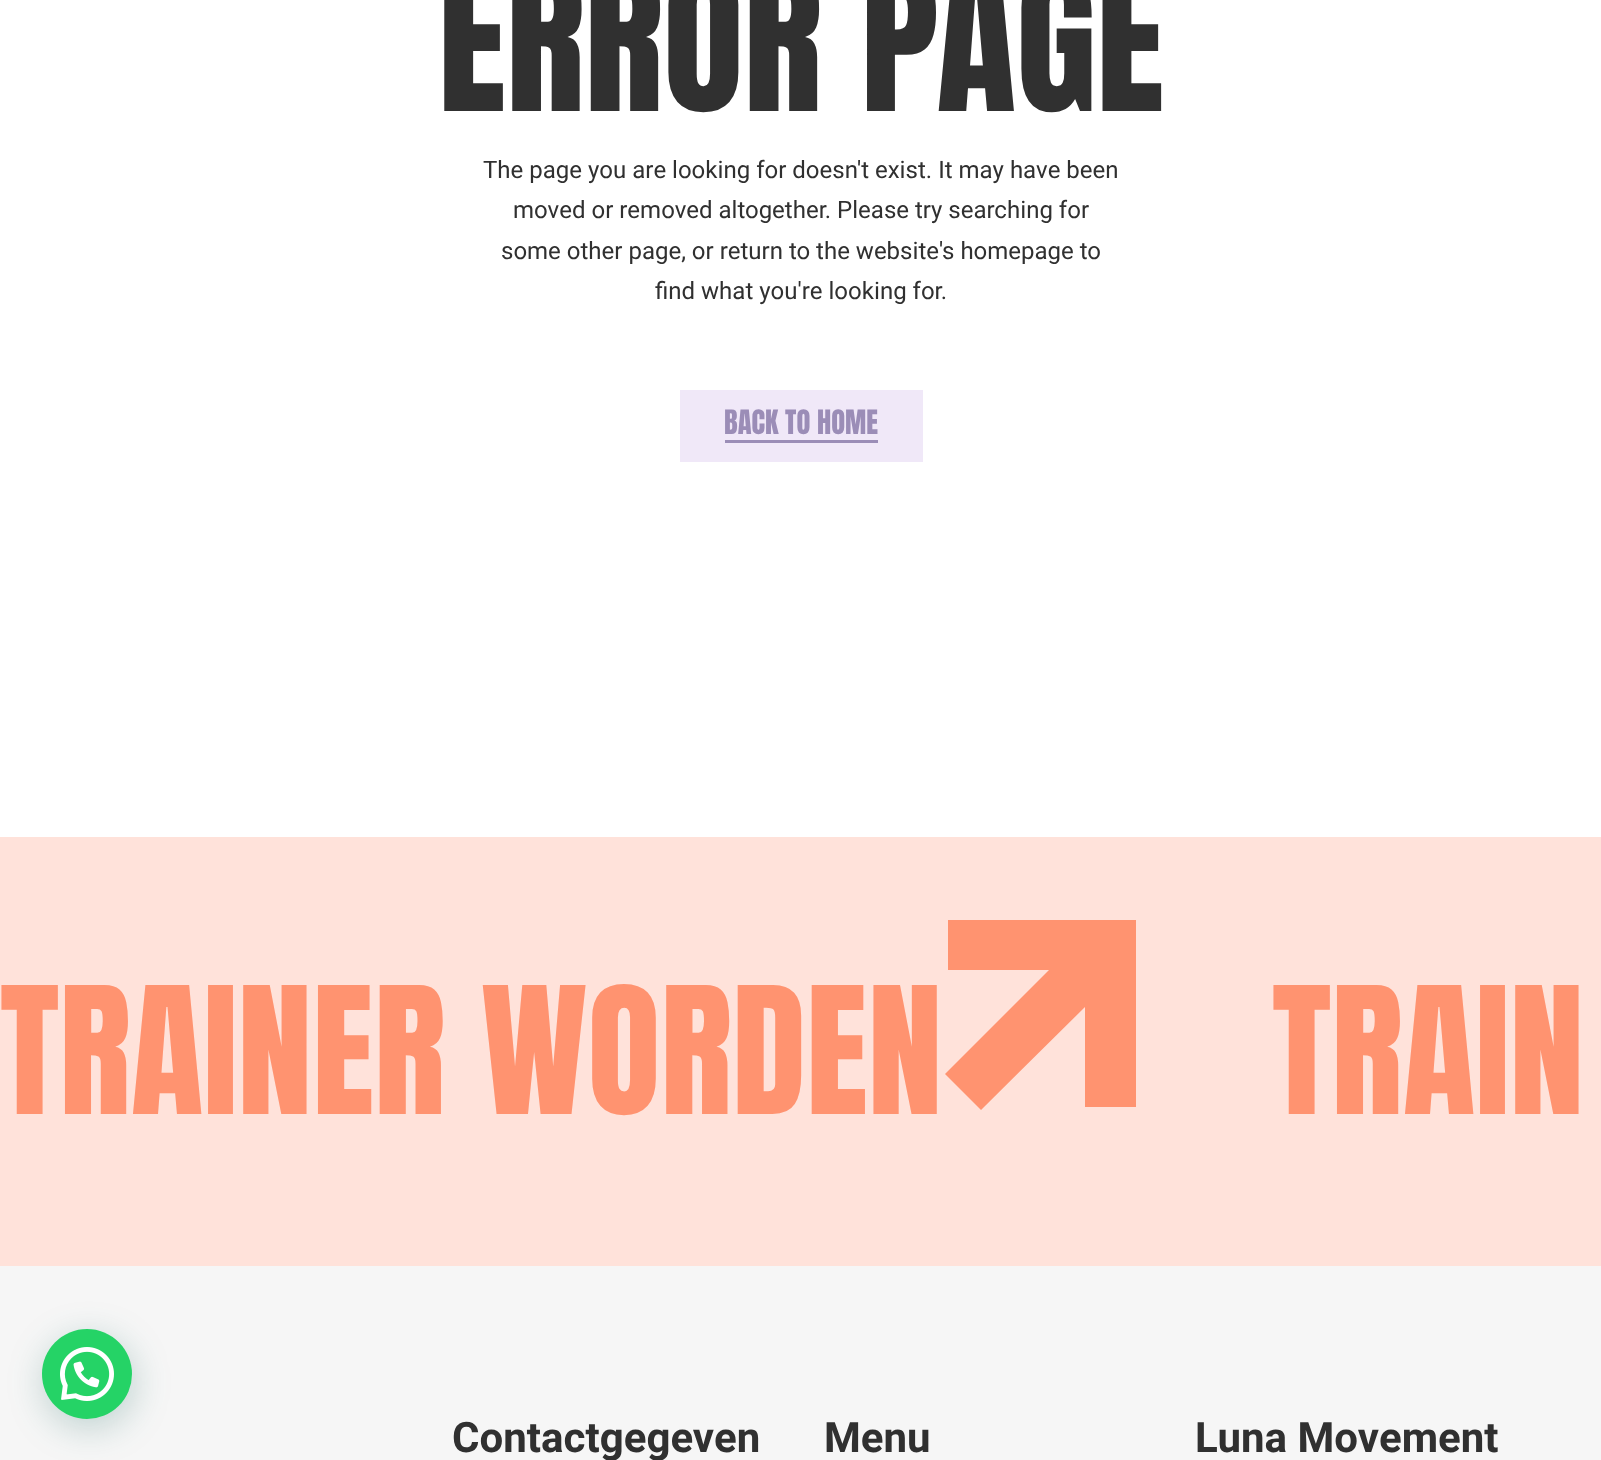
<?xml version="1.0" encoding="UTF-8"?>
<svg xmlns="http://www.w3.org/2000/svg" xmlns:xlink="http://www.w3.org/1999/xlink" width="1601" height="1460">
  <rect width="100%" height="100%" fill="#ffffff" />
  <rect x="680" y="390" width="243" height="72" fill="#f0e8f8" />
  <rect x="725" y="440" width="153" height="3" fill="#9b8db7" />
  <rect y="837" width="1601" height="429" fill="#ffe2da" />
  <path d="M 1085 920 h -137 v 50 h 101 l -104 104 l 36 36 l 104 -103 v 100 h 51 v -187 z" fill="#ff9370" />
  <rect y="1266" width="1601" height="194" fill="#f6f6f6" />
  <rect x="44" y="1338" width="90" height="90" rx="45" fill="#075e54" fill-opacity="0.24" filter="blur(18px)" />
  <circle cx="87" cy="1374" r="45" fill="#25d366" />
  <image x="60" y="1347" width="54" height="54" xlink:href="image1.png" />
  <text x="438" y="111" style="font-family: Anton; font-size: 165px; fill: #303030">ERROR PAGE</text>
  <text x="483" y="178" style="font-family: Heebo; font-size: 24px; fill: #303030">The page you are looking for doesn't exist. It may have been</text>
  <text x="513" y="218" style="font-family: Heebo; font-size: 24px; fill: #303030">moved or removed altogether. Please try searching for</text>
  <text x="501" y="259" style="font-family: Heebo; font-size: 24px; fill: #303030">some other page, or return to the website's homepage to</text>
  <text x="655" y="299" style="font-family: Heebo; font-size: 24px; fill: #303030">find what you're looking for.</text>
  <text x="724" y="434" style="font-family: Anton; font-size: 28.5px; fill: #9b8db7">BACK TO HOME</text>
  <text x="0" y="1114" style="font-family: Anton; font-size: 150px; fill: #ff9370">TRAINER WORDEN</text>
  <text x="1272" y="1114" style="font-family: Anton; font-size: 150px; fill: #ff9370">TRAIN</text>
  <text x="452" y="1452" style="font-family: Heebo; font-size: 42px; font-weight: bold; fill: #303030">Contactgegeven</text>
  <text x="824" y="1452" style="font-family: Heebo; font-size: 42px; font-weight: bold; fill: #303030">Menu</text>
  <text x="1195" y="1452" style="font-family: Heebo; font-size: 42px; font-weight: bold; fill: #303030">Luna Movement</text>
</svg>
